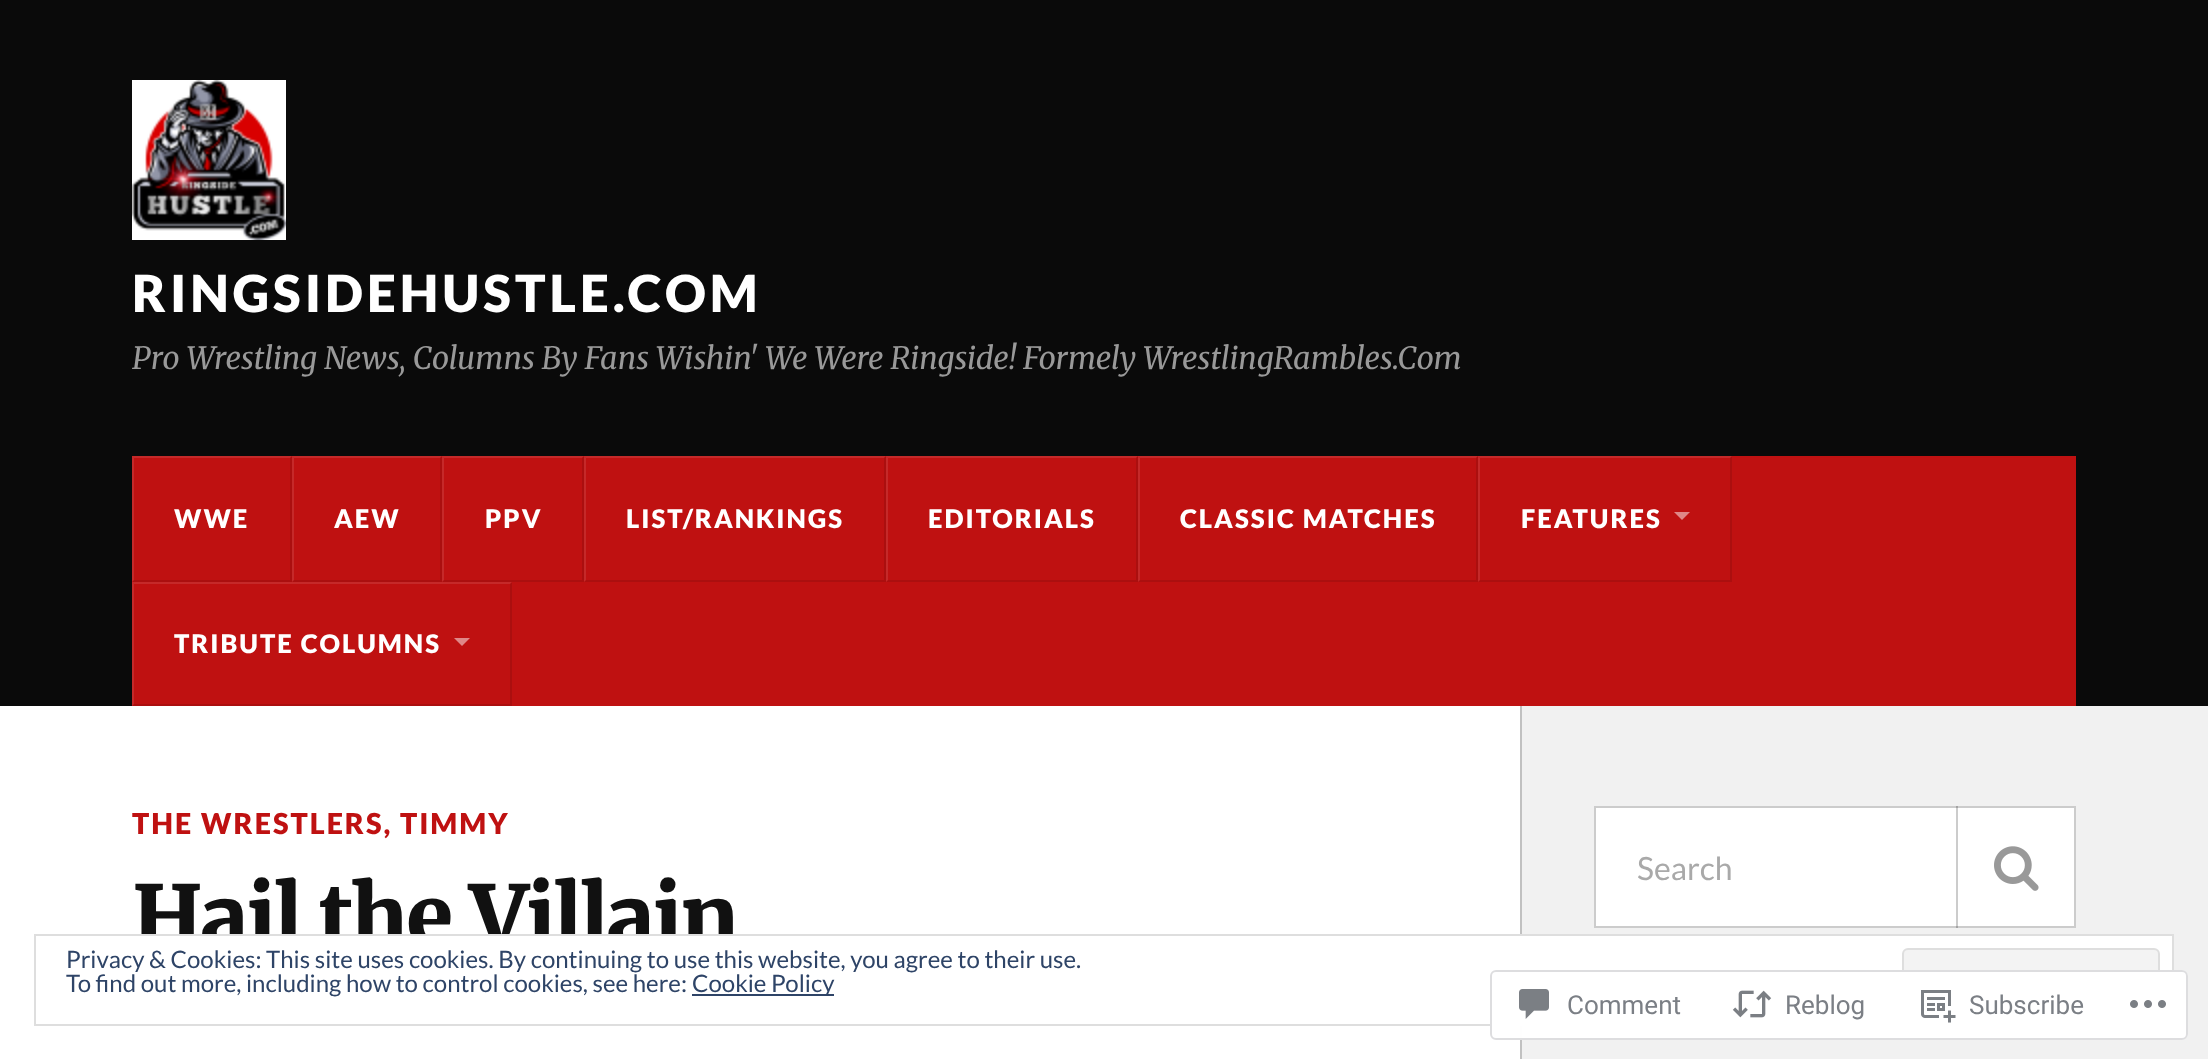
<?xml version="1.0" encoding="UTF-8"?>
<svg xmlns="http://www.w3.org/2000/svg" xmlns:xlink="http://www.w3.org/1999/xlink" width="2208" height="1059">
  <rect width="100%" height="100%" fill="#f1f1f1" />
  <rect width="2208" height="706" fill="#0a0a0a" />
  <image x="132" y="80" width="154" height="160" xlink:href="image1.png" />
  <rect x="132" y="456" width="1944" height="250" fill="#bf1111" />
  <path d="M 132 456 h 160 l -2 2 h -156 z" fill="#c52929" />
  <path d="M 292 456 v 126 l -2 -2 v -122 z" fill="#000000" fill-opacity="0.1" />
  <path d="M 292 582 h -160 l 2 -2 h 156 z" fill="#000000" fill-opacity="0.1" />
  <path d="M 132 582 v -126 l 2 2 v 122 z" fill="#ffffff" fill-opacity="0.1" />
  <path d="M 292 456 h 150 l -2 2 h -146 z" fill="#c52929" />
  <path d="M 442 456 v 126 l -2 -2 v -122 z" fill="#000000" fill-opacity="0.1" />
  <path d="M 442 582 h -150 l 2 -2 h 146 z" fill="#000000" fill-opacity="0.1" />
  <path d="M 292 582 v -126 l 2 2 v 122 z" fill="#ffffff" fill-opacity="0.1" />
  <path d="M 442 456 h 142 l -2 2 h -138 z" fill="#c52929" />
  <path d="M 584 456 v 126 l -2 -2 v -122 z" fill="#000000" fill-opacity="0.1" />
  <path d="M 584 582 h -142 l 2 -2 h 138 z" fill="#000000" fill-opacity="0.1" />
  <path d="M 442 582 v -126 l 2 2 v 122 z" fill="#ffffff" fill-opacity="0.1" />
  <path d="M 584 456 h 302 l -2 2 h -298 z" fill="#c52929" />
  <path d="M 886 456 v 126 l -2 -2 v -122 z" fill="#000000" fill-opacity="0.1" />
  <path d="M 886 582 h -302 l 2 -2 h 298 z" fill="#000000" fill-opacity="0.1" />
  <path d="M 584 582 v -126 l 2 2 v 122 z" fill="#ffffff" fill-opacity="0.1" />
  <path d="M 886 456 h 252 l -2 2 h -248 z" fill="#c52929" />
  <path d="M 1138 456 v 126 l -2 -2 v -122 z" fill="#000000" fill-opacity="0.1" />
  <path d="M 1138 582 h -252 l 2 -2 h 248 z" fill="#000000" fill-opacity="0.1" />
  <path d="M 886 582 v -126 l 2 2 v 122 z" fill="#ffffff" fill-opacity="0.1" />
  <path d="M 1138 456 h 340 l -2 2 h -336 z" fill="#c52929" />
  <path d="M 1478 456 v 126 l -2 -2 v -122 z" fill="#000000" fill-opacity="0.1" />
  <path d="M 1478 582 h -340 l 2 -2 h 336 z" fill="#000000" fill-opacity="0.1" />
  <path d="M 1138 582 v -126 l 2 2 v 122 z" fill="#ffffff" fill-opacity="0.1" />
  <path d="M 1478 456 h 254 l -2 2 h -250 z" fill="#c52929" />
  <path d="M 1732 456 v 126 l -2 -2 v -122 z" fill="#000000" fill-opacity="0.1" />
  <path d="M 1732 582 h -254 l 2 -2 h 250 z" fill="#000000" fill-opacity="0.1" />
  <path d="M 1478 582 v -126 l 2 2 v 122 z" fill="#ffffff" fill-opacity="0.1" />
  <path d="M 1674 512 h 16 l -8 8 z" fill="#df8888" />
  <path d="M 132 582 h 380 l -2 2 h -376 z" fill="#c52929" />
  <path d="M 512 582 v 124 l -2 -2 v -120 z" fill="#000000" fill-opacity="0.1" />
  <path d="M 512 706 h -380 l 2 -2 h 376 z" fill="#000000" fill-opacity="0.1" />
  <path d="M 132 706 v -124 l 2 2 v 120 z" fill="#ffffff" fill-opacity="0.1" />
  <path d="M 454 638 h 16 l -8 8 z" fill="#df8888" />
  <rect y="706" width="1520" height="353" fill="#ffffff" />
  <rect x="1520" y="706" width="2" height="353" fill="#c1c1c1" />
  <rect x="1595" y="807" width="480" height="120" fill="#ffffff" stroke="#cccccc" stroke-width="2" />
  <rect x="1956" y="806" width="2" height="122" fill="#000000" fill-opacity="0.2" />
  <image x="1994" y="846" width="45" height="45" xlink:href="image2.png" />
  <text x="132" y="312" style="font-family: Lato; font-size: 51px; font-weight: 900; letter-spacing: 4px; fill: #ffffff">RINGSIDEHUSTLE.COM</text>
  <text x="132" y="369" style="font-family: Merriweather; font-size: 30.6px; font-weight: 300; font-style: italic; fill: #999999">Pro Wrestling News, Columns By Fans Wishin' We Were Ringside! Formely WrestlingRambles.Com</text>
  <text x="174" y="528" style="font-family: Lato; font-size: 25.6px; font-weight: 900; letter-spacing: 2px; fill: #ffffff">WWE</text>
  <text x="334" y="528" style="font-family: Lato; font-size: 25.6px; font-weight: 900; letter-spacing: 2px; fill: #ffffff">AEW</text>
  <text x="485" y="528" style="font-family: Lato; font-size: 25.6px; font-weight: 900; letter-spacing: 2px; fill: #ffffff">PPV</text>
  <text x="626" y="528" style="font-family: Lato; font-size: 25.6px; font-weight: 900; letter-spacing: 2px; fill: #ffffff">LIST/RANKINGS</text>
  <text x="928" y="528" style="font-family: Lato; font-size: 25.6px; font-weight: 900; letter-spacing: 2px; fill: #ffffff">EDITORIALS</text>
  <text x="1180" y="528" style="font-family: Lato; font-size: 25.6px; font-weight: 900; letter-spacing: 2px; fill: #ffffff">CLASSIC MATCHES</text>
  <text x="1521" y="528" style="font-family: Lato; font-size: 25.6px; font-weight: 900; letter-spacing: 2px; fill: #ffffff">FEATURES</text>
  <text x="174" y="653" style="font-family: Lato; font-size: 25.6px; font-weight: 900; letter-spacing: 2px; fill: #ffffff">TRIBUTE COLUMNS</text>
  <text x="132" y="834" style="font-family: Lato; font-size: 28.75px; font-weight: 900; letter-spacing: 2px; fill: #bf1111">THE WRESTLERS, TIMMY</text>
  <text x="132" y="947" style="font-family: Merriweather; font-size: 85px; font-weight: 900; letter-spacing: -2px; fill: #111111">Hail the Villain</text>
  <text x="1637" y="880" style="font-family: Lato; font-size: 32px; fill: #a9a9a9">Search</text>
  <rect x="135" y="936" width="2037" height="88" fill="#ffffff" />
  <rect x="35" y="935" width="2138" height="90" fill="none" stroke="#dedede" stroke-width="2" />
  <text x="66" y="968" style="font-family: Lato; font-size: 24px; fill: #2e4467">Privacy &amp; Cookies: This site uses cookies. By continuing to use this website, you agree to their use.</text>
  <rect x="1903" y="949" width="256" height="62" rx="5" fill="#f3f3f3" stroke="#dedede" stroke-width="2" />
  <text x="66" y="992" style="font-family: Lato; font-size: 24px; fill: #2e4467">To find out more, including how to control cookies, see here:</text>
  <rect x="692" y="994" width="142" height="2" fill="#2e4467" />
  <text x="692" y="992" style="font-family: Lato; font-size: 24px; fill: #2e4467">Cookie Policy</text>
  <rect x="1490" y="970" width="698" height="70" rx="6" fill="#ffffff" fill-opacity="0.98" />
  <rect x="1491" y="971" width="696" height="68" rx="5" fill="none" stroke="#dcdcde" stroke-opacity="0.98" stroke-width="2" />
  <image x="1519" y="989" width="30" height="30" xlink:href="image3.png" />
  <text x="1567" y="1014" style="font-family: Roboto; font-size: 26px; fill: #7b7f85">Comment</text>
  <image x="1732" y="990" width="40" height="28" xlink:href="image4.png" />
  <text x="1785" y="1014" style="font-family: Roboto; font-size: 26px; fill: #7b7f85">Reblog</text>
  <image x="1921" y="990" width="35" height="33" xlink:href="image5.png" />
  <text x="1969" y="1014" style="font-family: Roboto; font-size: 26px; fill: #7b7f85">Subscribe</text>
  <image x="2130" y="1000" width="36" height="8" xlink:href="image6.png" />
</svg>
